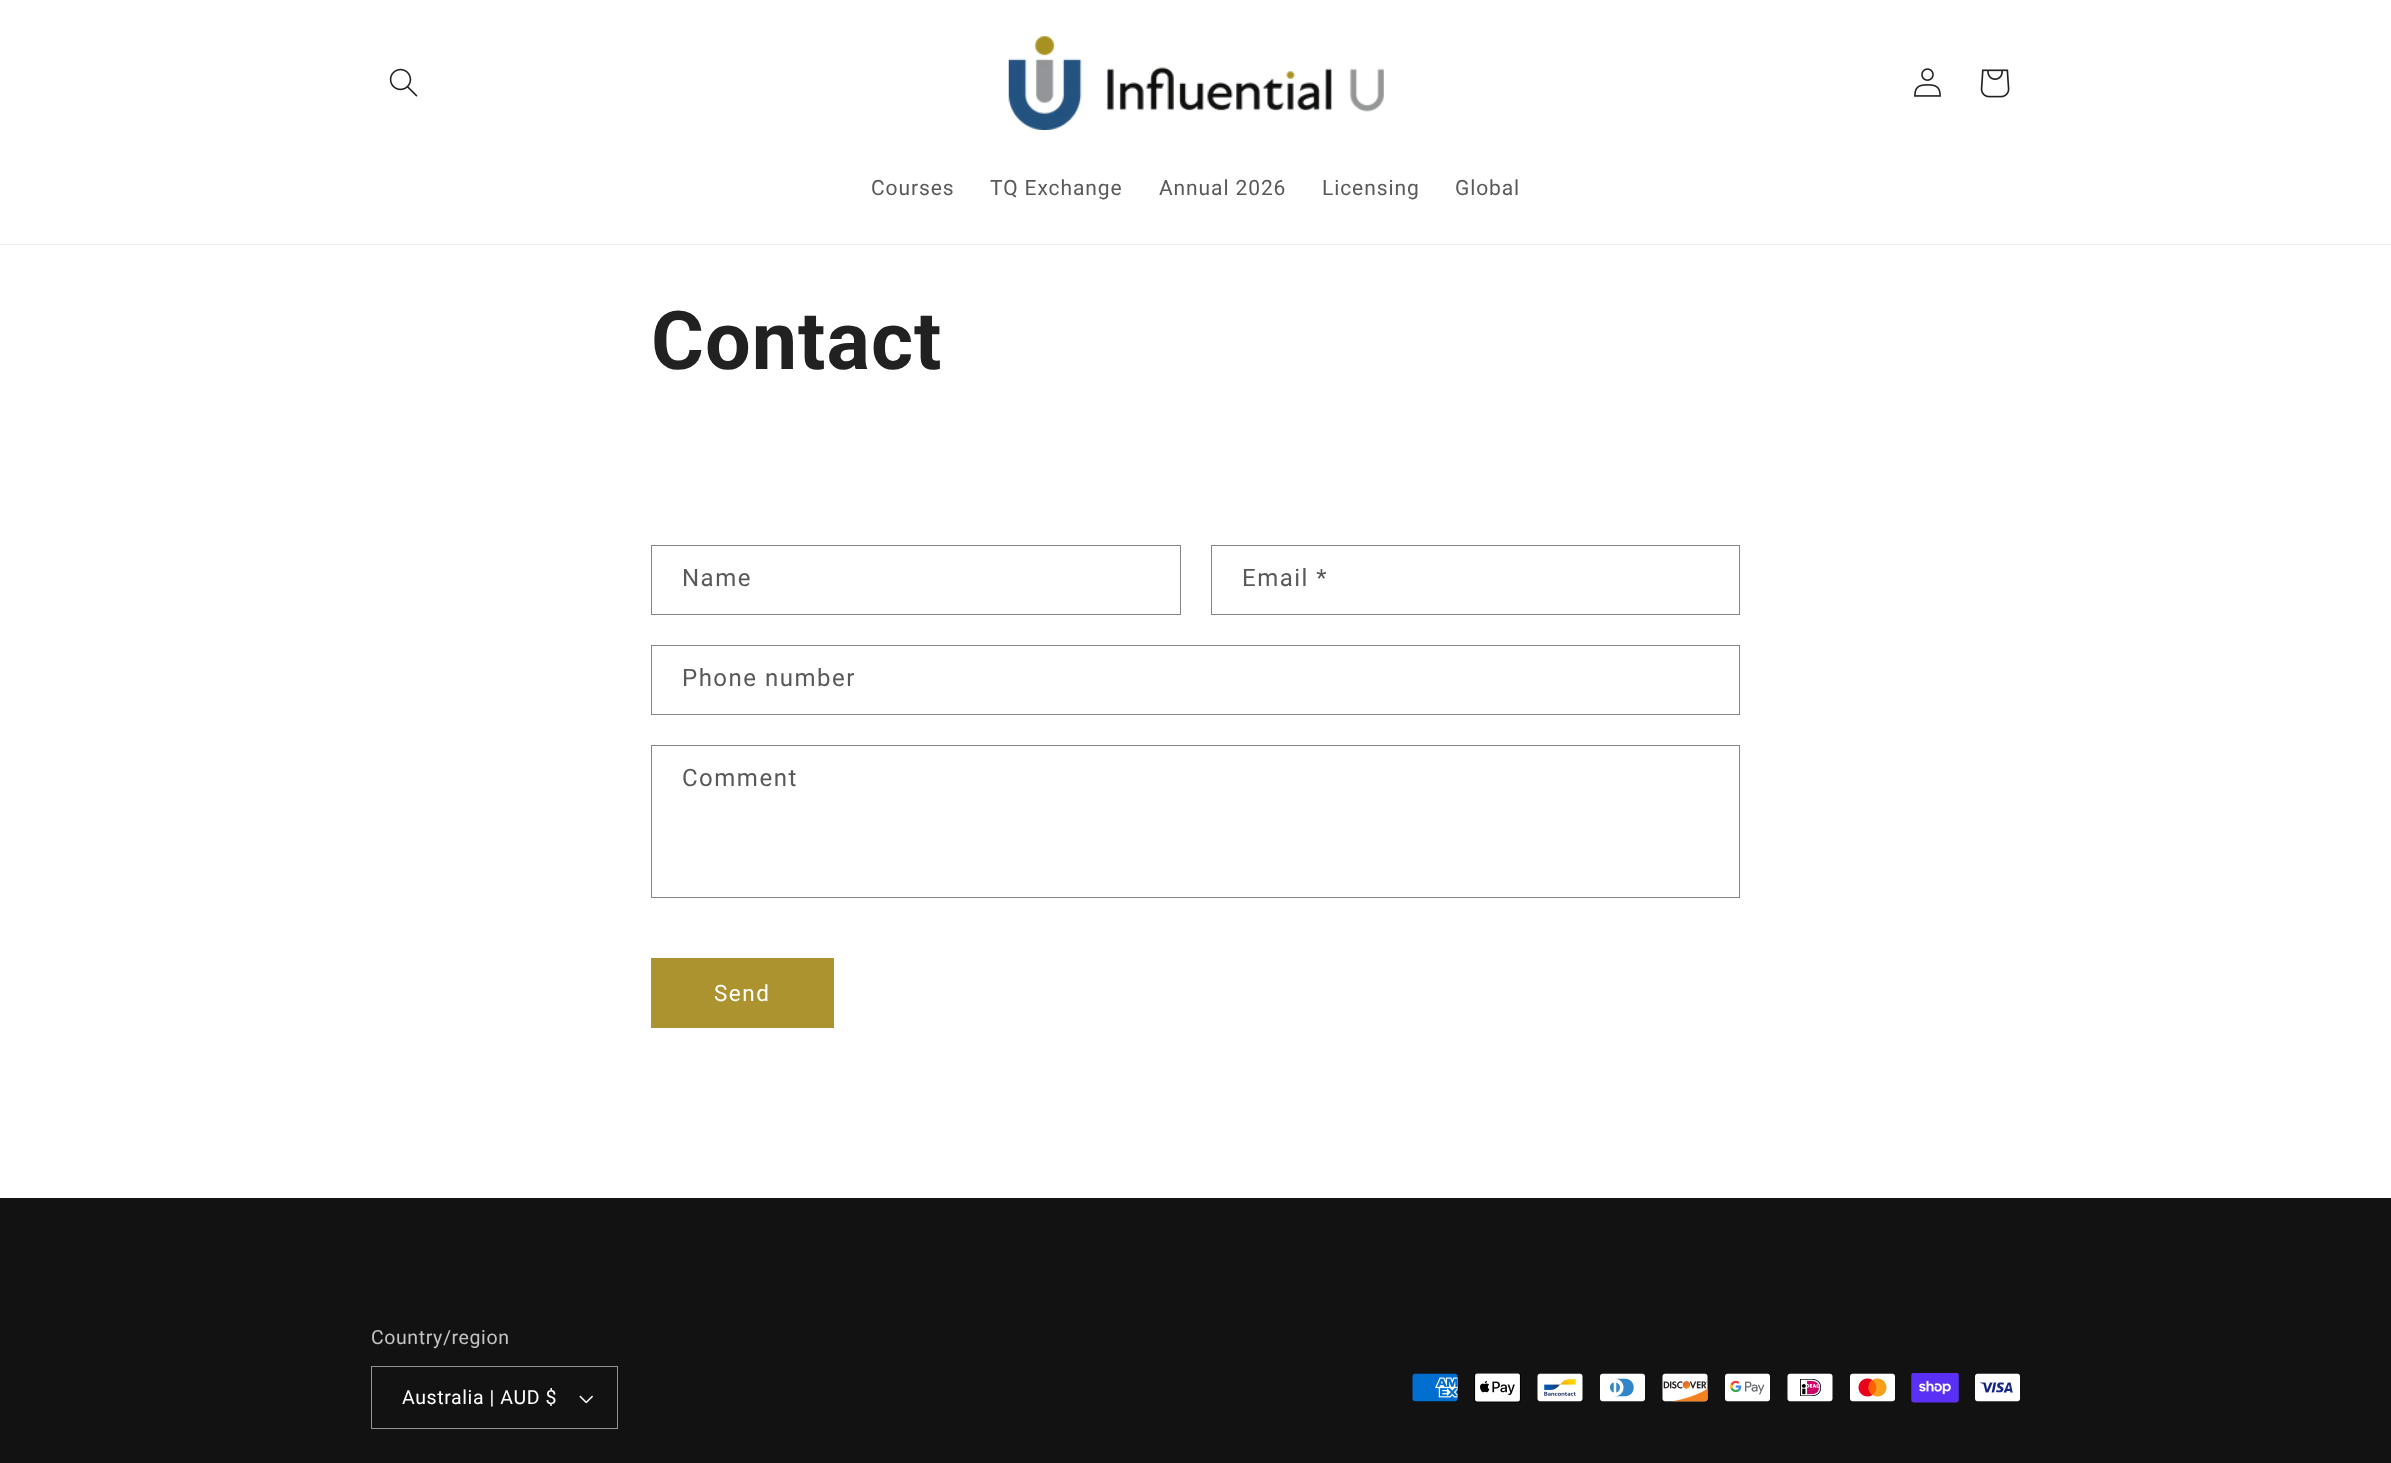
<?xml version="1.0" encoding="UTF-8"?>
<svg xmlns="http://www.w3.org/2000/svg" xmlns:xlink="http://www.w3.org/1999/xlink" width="2391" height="1463">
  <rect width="100%" height="100%" fill="#ffffff" />
  <rect y="244" width="2391" height="1" fill="#ededed" />
  <image x="389" y="68" width="29" height="29" xlink:href="image1.png" />
  <image x="1008" y="36" width="376" height="94" xlink:href="image2.png" />
  <image x="1914" y="68" width="27" height="29" xlink:href="image3.png" />
  <image x="1980" y="69" width="30" height="29" xlink:href="image4.png" />
  <rect x="651.5" y="545.5" width="529" height="69" fill="none" stroke="#858585" />
  <rect x="1211.5" y="545.5" width="528" height="69" fill="none" stroke="#858585" />
  <rect x="651.5" y="645.5" width="1088" height="69" fill="none" stroke="#858585" />
  <rect x="651.5" y="745.5" width="1088" height="152" fill="none" stroke="#858585" />
  <rect x="651" y="958" width="183" height="70" fill="#ac932f" />
  <rect y="1198" width="2391" height="265" fill="#121212" />
  <image x="579" y="1395" width="14" height="9" xlink:href="image5.png" />
  <rect x="371.5" y="1366.5" width="246" height="62" fill="none" stroke="#949494" />
  <image x="1412" y="1373" width="46" height="29" xlink:href="image6.png" />
  <image x="1474" y="1373" width="47" height="30" xlink:href="image7.png" />
  <image x="1537" y="1373" width="46" height="29" xlink:href="image8.png" />
  <image x="1600" y="1373" width="45" height="29" xlink:href="image9.png" />
  <image x="1662" y="1373" width="46" height="29" xlink:href="image10.png" />
  <image x="1725" y="1373" width="45" height="29" xlink:href="image11.png" />
  <image x="1787" y="1373" width="46" height="29" xlink:href="image12.png" />
  <image x="1850" y="1373" width="45" height="29" xlink:href="image13.png" />
  <image x="1911" y="1373" width="48" height="30" xlink:href="image14.png" />
  <image x="1975" y="1373" width="45" height="29" xlink:href="image15.png" />
  <text x="871" y="195" style="font-family: Roboto; font-size: 21px; letter-spacing: 0.9px; fill: #595959">Courses</text>
  <text x="990" y="195" style="font-family: Roboto; font-size: 21px; letter-spacing: 0.9px; fill: #595959">TQ Exchange</text>
  <text x="1159" y="195" style="font-family: Roboto; font-size: 21px; letter-spacing: 0.9px; fill: #595959">Annual 2026</text>
  <text x="1322" y="195" style="font-family: Roboto; font-size: 21px; letter-spacing: 0.9px; fill: #595959">Licensing</text>
  <text x="1455" y="195" style="font-family: Roboto; font-size: 21px; letter-spacing: 0.9px; fill: #595959">Global</text>
  <text x="651" y="369" style="font-family: Roboto; font-size: 81px; font-weight: bold; letter-spacing: 1px; fill: #212121">Contact</text>
  <text x="682" y="586" style="font-family: Roboto; font-size: 24px; letter-spacing: 1.5px; fill: #595959">Name</text>
  <text x="1242" y="586" style="font-family: Roboto; font-size: 24px; letter-spacing: 1.5px; fill: #595959">Email *</text>
  <text x="682" y="686" style="font-family: Roboto; font-size: 24px; letter-spacing: 1.5px; fill: #595959">Phone number</text>
  <text x="682" y="786" style="font-family: Roboto; font-size: 24px; letter-spacing: 1.5px; fill: #595959">Comment</text>
  <text x="714" y="1001" style="font-family: Roboto; font-size: 22.5px; letter-spacing: 1.5px; fill: #ffffff">Send</text>
  <text x="371" y="1344" style="font-family: Roboto; font-size: 19.5px; letter-spacing: 0.6px; fill: #c4c4c4">Country/region</text>
  <text x="402" y="1404" style="font-family: Roboto; font-size: 19.5px; letter-spacing: 0.6px; fill: #ffffff">Australia | AUD $</text>
</svg>
